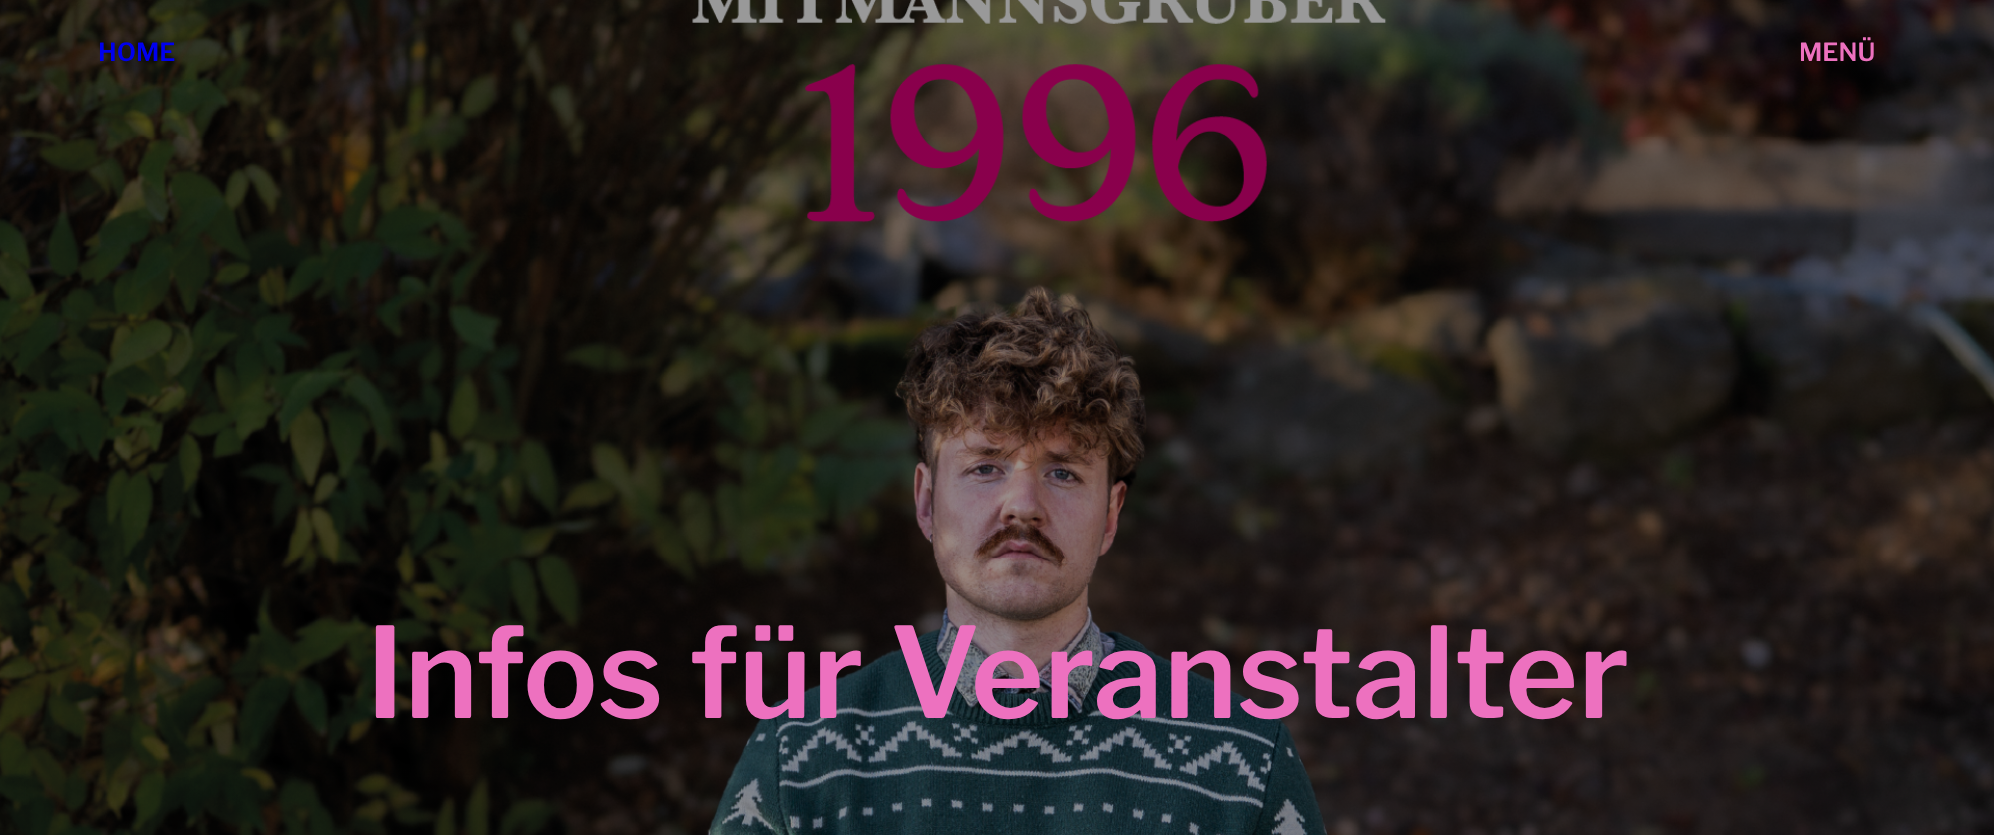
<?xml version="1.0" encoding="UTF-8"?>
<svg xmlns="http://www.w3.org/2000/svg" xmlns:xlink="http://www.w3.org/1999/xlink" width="1994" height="835">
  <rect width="100%" height="100%" fill="#ffffff" />
  <image x="0" y="0" width="1994" height="835" xlink:href="image1.png" />
  <text x="98" y="61" style="font-family: Libre Franklin; font-size: 25px; font-weight: 600; fill: #0000ee">HOME</text>
  <text x="1799" y="61" style="font-family: Libre Franklin; font-size: 25px; font-weight: 600; fill: #ed71bf">MENÜ</text>
  <text x="366" y="718" style="font-family: Libre Franklin; font-size: 125px; font-weight: 600; fill: #ed71bf">Infos für Veranstalter</text>
</svg>
